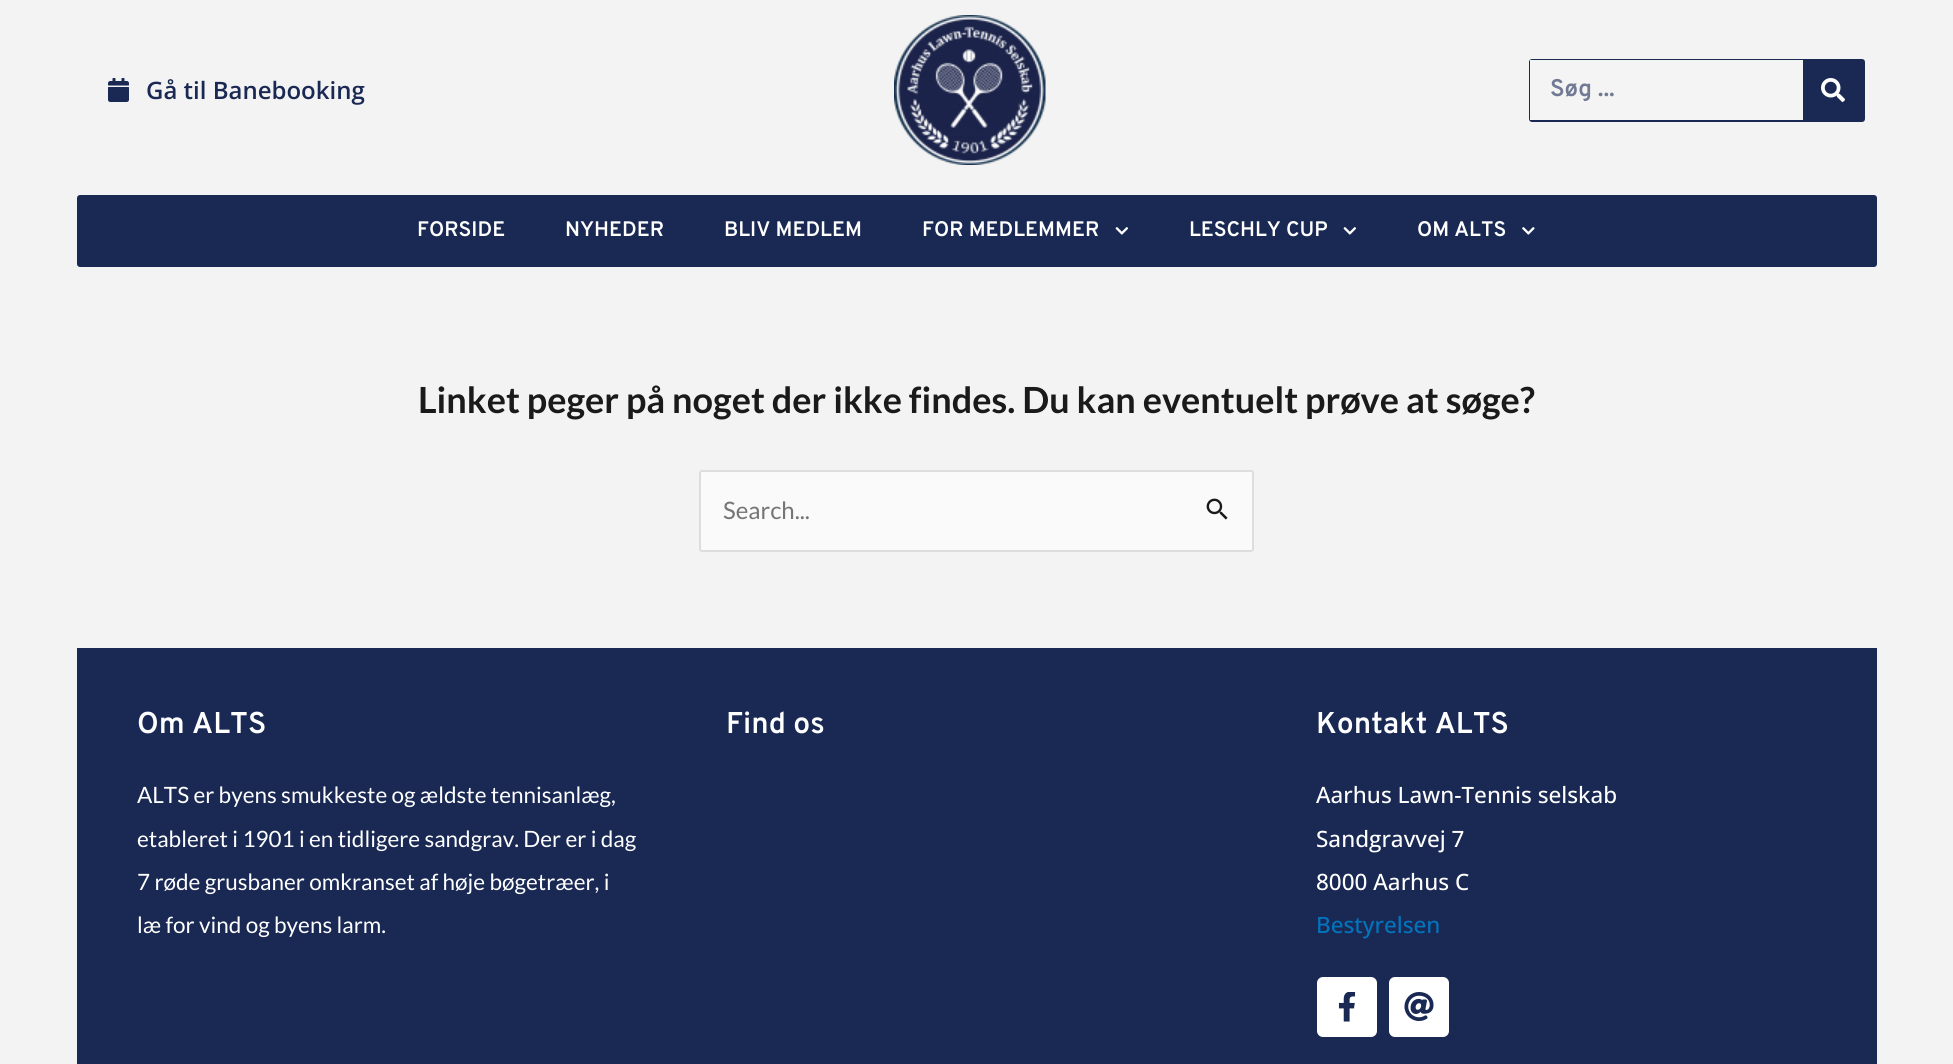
#include <cairo.h>
#include <math.h>
#include <stddef.h>

static cairo_t *c;
static void C(unsigned color){cairo_set_source_rgb(c, (color >> 16) / 255.0, (color >> 8 & 255) / 255.0, (color & 255) / 255.0);}
static void F(const char *family, double size, int italic, int bold){cairo_select_font_face(c, family, italic ? CAIRO_FONT_SLANT_ITALIC : CAIRO_FONT_SLANT_NORMAL,bold ? CAIRO_FONT_WEIGHT_BOLD : CAIRO_FONT_WEIGHT_NORMAL);cairo_set_font_size(c, size);}
static void T(double x, double y, const char *s){cairo_move_to(c, x, y);cairo_show_text(c, s);}
static void R(double x, double y, double w, double h){cairo_rectangle(c, x, y, w, h);cairo_fill(c);}
static void Q(double x, double y, double w, double h, double r){cairo_new_sub_path(c);cairo_arc(c, x + w - r, y + h - r, r, 0, M_PI / 2);cairo_arc(c, x + r, y + h - r, r, M_PI / 2, M_PI);cairo_arc(c, x + r, y + r, r, M_PI, 1.5 * M_PI);cairo_arc(c, x + w - r, y + r, r, 1.5 * M_PI, 2 * M_PI);cairo_close_path(c);}
static void I(const char *path, double x, double y, double w, double h){cairo_surface_t *image = cairo_image_surface_create_from_png(path);cairo_save(c);cairo_set_source_surface(c, image, x, y);cairo_rectangle(c, x, y, w, h);cairo_fill(c);cairo_restore(c);cairo_surface_destroy(image);}
int main(void) {
cairo_surface_t *surface = cairo_image_surface_create(CAIRO_FORMAT_RGB24, 1953, 1064);
c = cairo_create(surface);
cairo_font_options_t *options = cairo_font_options_create();
cairo_font_options_set_hint_metrics(options, CAIRO_HINT_METRICS_OFF);
cairo_font_options_set_hint_style(options, CAIRO_HINT_STYLE_NONE);
cairo_set_font_options(c, options);
cairo_set_miter_limit(c, 4);
C(0xf3f3f3);
cairo_paint(c);
I("1.png",108,78,21,24);
F("Open Sans SemiBold",24,0,0);
C(0x192954);
T(146,99,"Gå til Banebooking");
I("2.png",894,15,152,150);
Q(1530,60,334,61,2);
cairo_stroke(c);
C(0xf4f4f4);
R(1530,60,273,60);
F("Overpass SemiBold",24,0,0);
C(0x717a94);
T(1550,96,"Søg ...");
C(0x192954);
R(1803,61,60,59);
I("3.png",1821,78,24,24);
Q(77,195,1800,72,3);
cairo_fill(c);
F("Overpass SemiBold",21,0,0);
C(0xffffff);
T(417,236,"FORSIDE");
T(565,236,"NYHEDER");
T(724,236,"BLIV MEDLEM");
T(922,236,"FOR MEDLEMMER");
I("4.png",1115,227,14,8);
T(1189,236,"LESCHLY CUP");
I("4.png",1343,227,14,8);
T(1417,236,"OM ALTS");
I("5.png",1522,227,13,8);
F("Lato",36,0,1);
C(0x1a1a1a);
T(418,413,"Linket peger på noget der ikke findes. Du kan eventuelt prøve at søge?");
C(0xfafafa);
Q(700,471,553,80,2);
cairo_fill_preserve(c);
C(0xdddddd);
cairo_stroke(c);
F("Lato",24,0,0);
C(0x757575);
T(723,519,"Search...");
I("6.png",1206,498,22,22);
C(0x192954);
R(77,648,1800,416);
F("Overpass SemiBold",30,0,0);
C(0xffffff);
T(137,733,"Om ALTS");
F("Lato",22.5,0,0);
T(137,803,"ALTS er byens smukkeste og ældste tennisanlæg,");
T(137,847,"etableret i 1901 i en tidligere sandgrav. Der er i dag");
T(137,890,"7 røde grusbaner omkranset af høje bøgetræer, i");
T(137,933,"læ for vind og byens larm.");
F("Overpass SemiBold",30,0,0);
T(726,733,"Find os");
T(1316,733,"Kontakt ALTS");
F("Open Sans Medium",22.5,0,0);
T(1316,803,"Aarhus Lawn-Tennis selskab");
T(1316,847,"Sandgravvej 7");
T(1316,890,"8000 Aarhus C");
C(0x0274be);
T(1316,933,"Bestyrelsen");
C(0xffffff);
Q(1317,977,60,60,6);
cairo_fill(c);
I("7.png",1338,992,18,30);
Q(1389,977,60,60,6);
cairo_fill(c);
I("8.png",1404,992,30,29);
cairo_surface_write_to_png(surface, "o.png");
cairo_font_options_destroy(options);
cairo_destroy(c);
cairo_surface_destroy(surface);
return 0;
}
